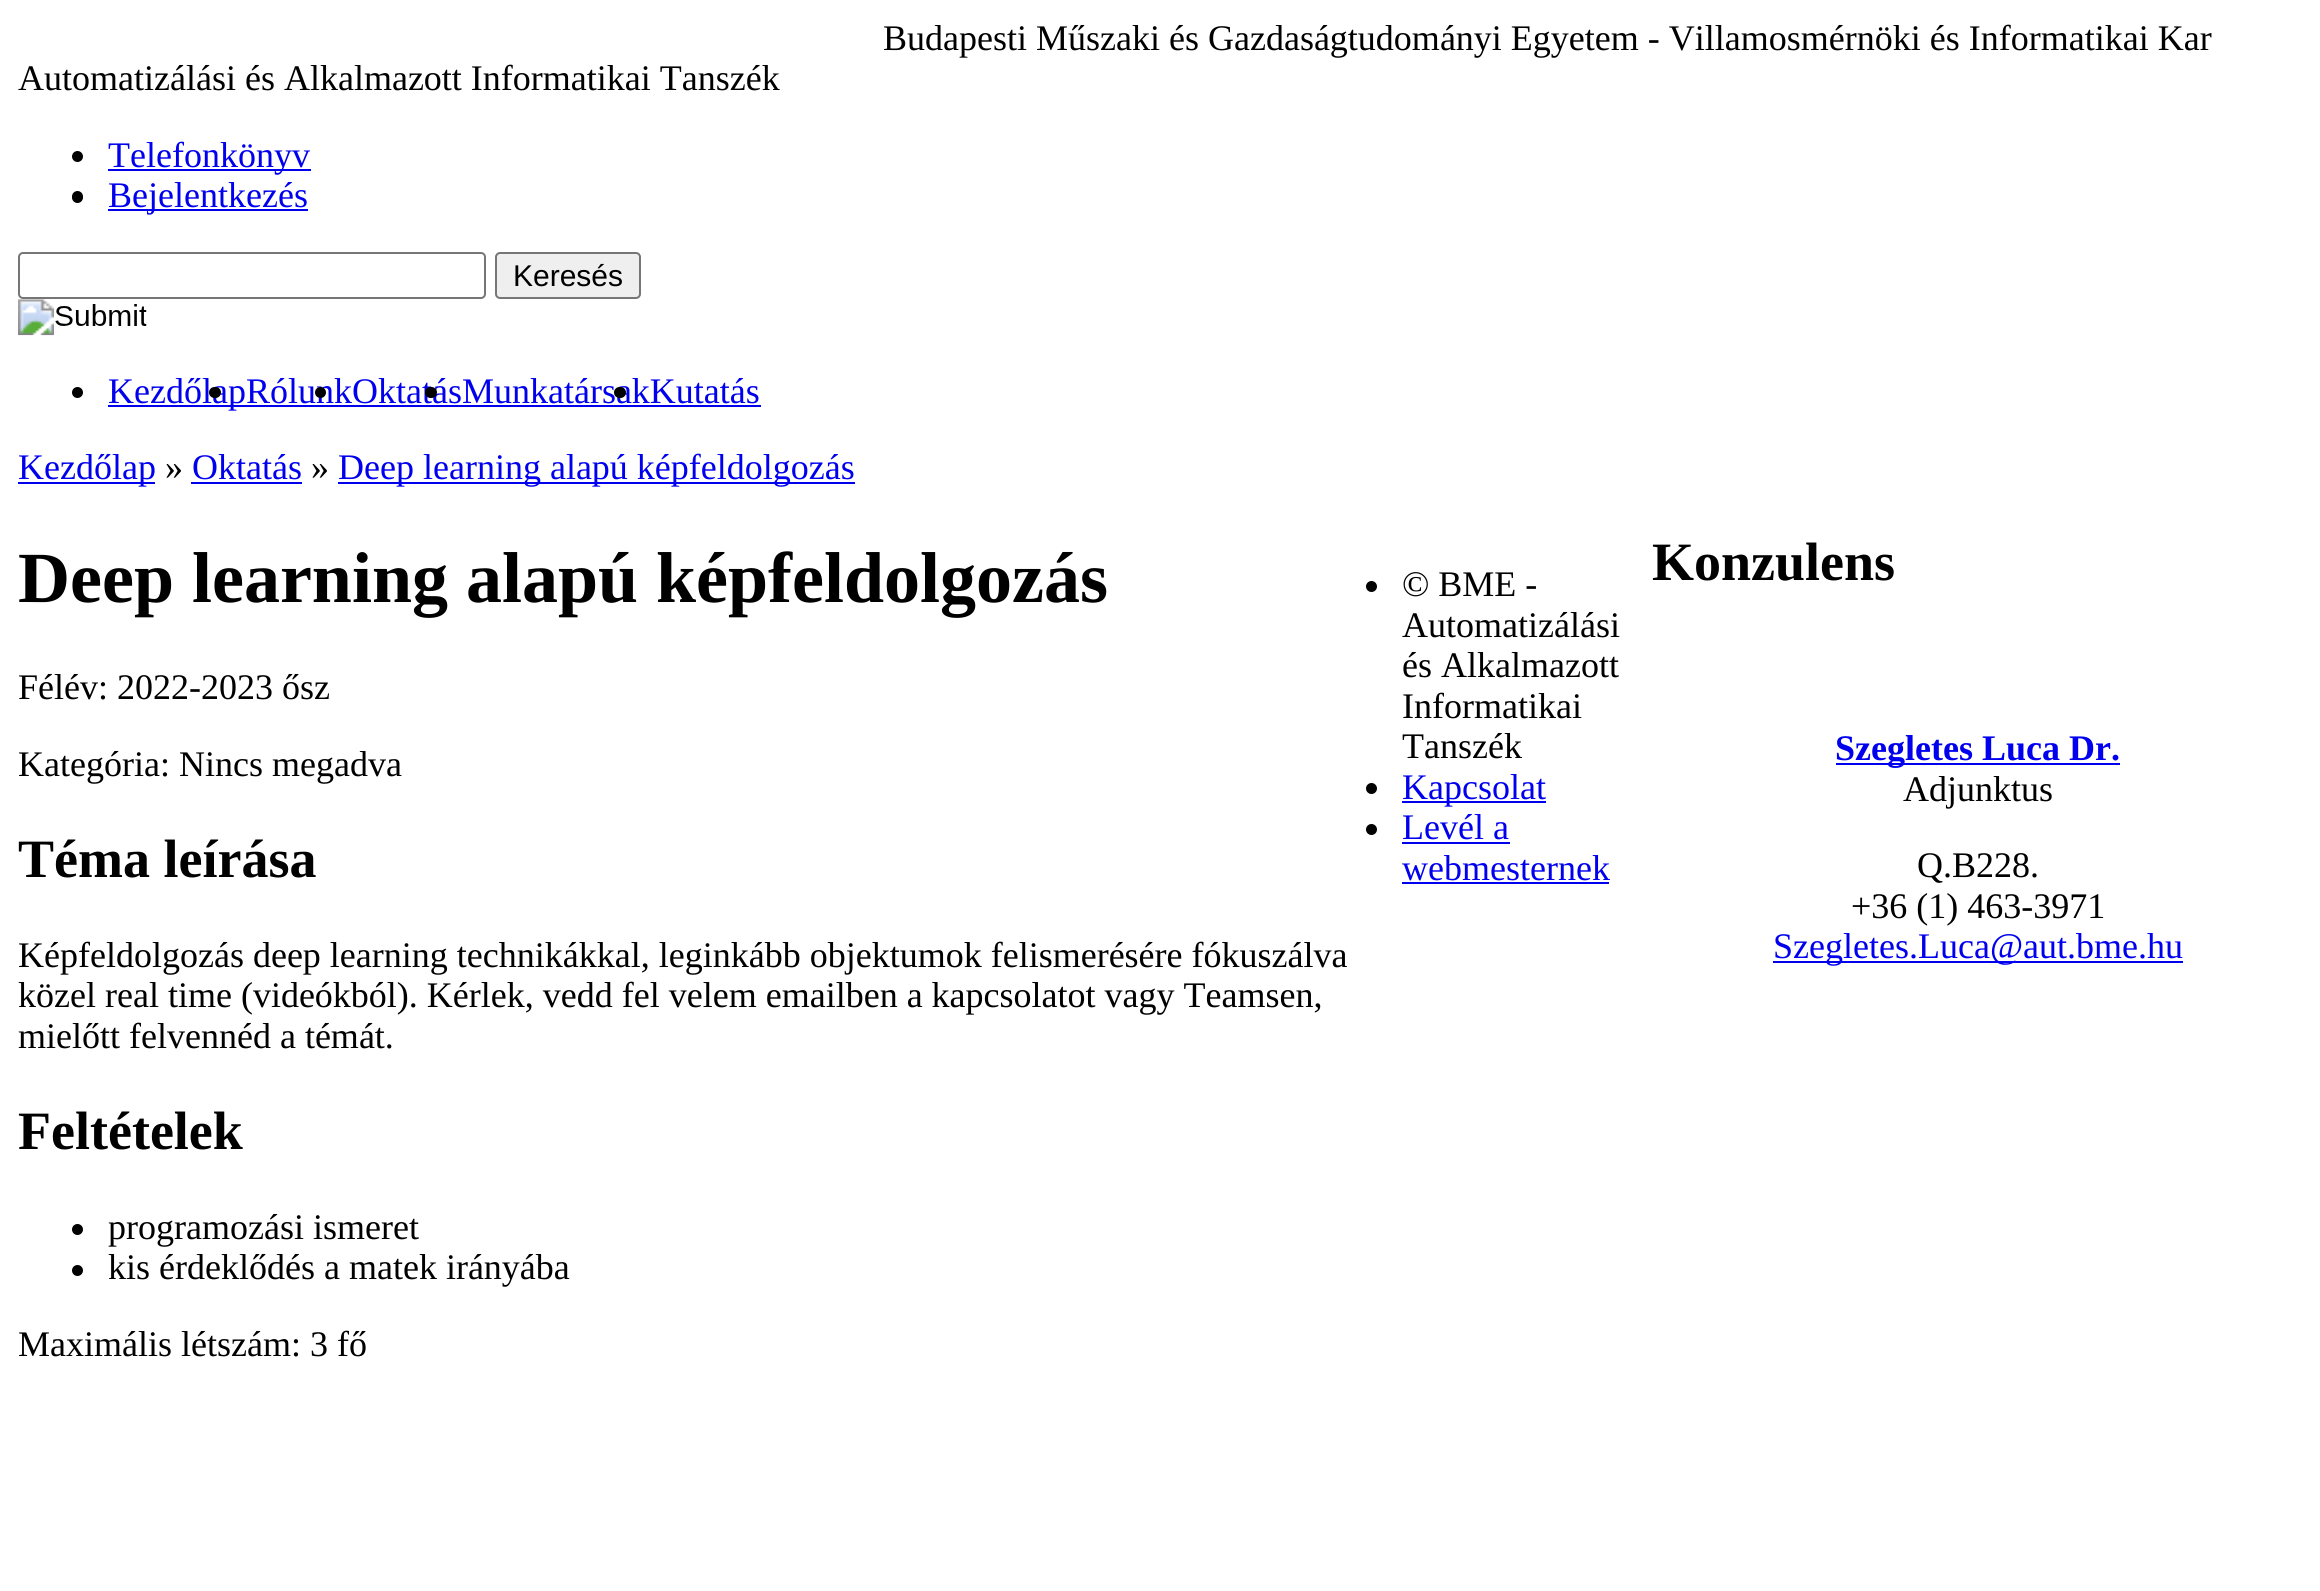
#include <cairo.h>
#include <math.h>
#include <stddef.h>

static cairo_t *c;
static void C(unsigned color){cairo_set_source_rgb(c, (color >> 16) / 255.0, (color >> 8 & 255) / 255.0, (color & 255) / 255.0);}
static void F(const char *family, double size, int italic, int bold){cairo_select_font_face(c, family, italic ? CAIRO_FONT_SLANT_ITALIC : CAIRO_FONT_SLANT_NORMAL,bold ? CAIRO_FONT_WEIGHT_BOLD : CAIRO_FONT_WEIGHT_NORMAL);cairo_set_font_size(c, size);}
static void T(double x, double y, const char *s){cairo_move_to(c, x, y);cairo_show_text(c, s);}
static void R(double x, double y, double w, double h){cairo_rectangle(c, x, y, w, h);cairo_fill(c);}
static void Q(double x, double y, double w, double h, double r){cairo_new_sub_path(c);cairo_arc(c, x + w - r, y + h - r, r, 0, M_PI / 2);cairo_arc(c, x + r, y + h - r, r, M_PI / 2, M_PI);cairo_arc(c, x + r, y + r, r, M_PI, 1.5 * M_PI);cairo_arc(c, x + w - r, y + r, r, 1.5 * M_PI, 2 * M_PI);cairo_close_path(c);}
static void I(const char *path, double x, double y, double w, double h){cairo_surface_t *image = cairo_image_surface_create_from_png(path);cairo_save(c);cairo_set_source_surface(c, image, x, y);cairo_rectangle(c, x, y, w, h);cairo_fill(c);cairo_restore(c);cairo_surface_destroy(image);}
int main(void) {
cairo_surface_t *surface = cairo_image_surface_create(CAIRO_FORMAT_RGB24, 2320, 1591);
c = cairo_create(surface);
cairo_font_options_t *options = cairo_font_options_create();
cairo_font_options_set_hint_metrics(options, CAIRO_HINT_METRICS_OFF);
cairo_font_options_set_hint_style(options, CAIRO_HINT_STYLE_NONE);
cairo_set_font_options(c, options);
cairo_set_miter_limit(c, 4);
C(0xffffff);
cairo_paint(c);
F("Liberation Serif",36,0,0);
C(0x000000);
T(883,50,"Budapesti Műszaki és Gazdaságtudományi Egyetem - Villamosmérnöki és Informatikai Kar");
T(18,90,"Automatizálási és Alkalmazott Informatikai Tanszék");
cairo_new_path(c);
cairo_arc(c,77.5,156.5,5.5,0,2 * M_PI);
cairo_fill(c);
C(0x0000ee);
R(108,169,203,2);
T(108,167,"Telefonkönyv");
C(0x000000);
Q(72,191,11,12,5.5);
cairo_fill(c);
C(0x0000ee);
R(108,209,200,2);
T(108,207,"Bejelentkezés");
Q(19,253,466,45,4);
C(0x767676);
cairo_stroke(c);
C(0xefefef);
Q(496,253,144,45,4);
cairo_fill_preserve(c);
C(0x767676);
cairo_stroke(c);
F("Liberation Sans",30,0,0);
C(0x000000);
T(513,286,"Keresés");
I("1.png",18,299,129,37);
cairo_arc(c,77.5,392.5,5.5,0,2 * M_PI);
cairo_fill(c);
C(0x0000ee);
R(108,405,243,2);
F("Liberation Serif",36,0,0);
T(108,403,"KezdőlapRólunkOktatásMunkatársakKutatás");
C(0x000000);
Q(209,387,12,11,5.5);
cairo_fill(c);
cairo_arc(c,320.5,392.5,5.5,0,2 * M_PI);
cairo_fill(c);
C(0x0000ee);
R(351,405,410,2);
C(0x000000);
Q(425,387,12,11,5.5);
cairo_fill(c);
Q(614,387,12,11,5.5);
cairo_fill(c);
C(0x0000ee);
R(18,482,137,2);
T(18,479,"Kezdőlap");
C(0x000000);
T(165,479,"»");
C(0x0000ee);
T(192,479,"Oktatás");
R(191,482,111,2);
C(0x000000);
T(311,479,"»");
C(0x0000ee);
R(338,482,517,2);
T(338,479,"Deep learning alapú képfeldolgozás");
F("Liberation Serif",72,0,1);
C(0x000000);
T(18,602,"Deep learning alapú képfeldolgozás");
F("Liberation Serif",36,0,0);
T(18,699,"Félév: 2022-2023 ősz");
T(18,776,"Kategória: Nincs megadva");
F("Liberation Serif",54,0,1);
T(18,877,"Téma leírása");
F("Liberation Serif",36,0,0);
T(18,967,"Képfeldolgozás deep learning technikákkal, leginkább objektumok felismerésére fókuszálva");
T(18,1007,"közel real time (videókból). Kérlek, vedd fel velem emailben a kapcsolatot vagy Teamsen,");
T(18,1048,"mielőtt felvennéd a témát.");
F("Liberation Serif",54,0,1);
T(18,1149,"Feltételek");
cairo_new_path(c);
cairo_arc(c,77.5,1229.5,5.5,0,2 * M_PI);
cairo_fill(c);
F("Liberation Serif",36,0,0);
T(108,1239,"programozási ismeret");
cairo_new_path(c);
cairo_arc(c,77.5,1270.5,5.5,0,2 * M_PI);
cairo_fill(c);
T(108,1279,"kis érdeklődés a matek irányába");
T(18,1356,"Maximális létszám: 3 fő");
F("Liberation Serif",54,0,1);
T(1652,580,"Konzulens");
C(0x0000ee);
R(1836,763,284,2);
F("Liberation Serif",36,0,1);
T(1835,760,"Szegletes Luca Dr.");
F("Liberation Serif",36,0,0);
C(0x000000);
T(1903,801,"Adjunktus");
T(1917,877,"Q.B228.");
T(1851,918,"+36 (1) 463-3971");
C(0x0000ee);
R(1773,961,410,2);
T(1773,958,"Szegletes.Luca@aut.bme.hu");
C(0x000000);
cairo_new_path(c);
cairo_arc(c,1371.5,586.5,5.5,0,2 * M_PI);
cairo_fill(c);
T(1402,596,"© BME -");
T(1402,637,"Automatizálási");
T(1402,677,"és Alkalmazott");
T(1402,718,"Informatikai");
T(1402,758,"Tanszék");
cairo_new_path(c);
cairo_arc(c,1371.5,788.5,5.5,0,2 * M_PI);
cairo_fill(c);
C(0x0000ee);
R(1402,801,144,2);
T(1402,799,"Kapcsolat");
C(0x000000);
cairo_new_path(c);
cairo_arc(c,1371.5,829.5,5.5,0,2 * M_PI);
cairo_fill(c);
C(0x0000ee);
T(1402,839,"Levél a");
R(1402,842,108,2);
T(1402,880,"webmesternek");
R(1402,882,207,2);
cairo_surface_write_to_png(surface, "o.png");
cairo_font_options_destroy(options);
cairo_destroy(c);
cairo_surface_destroy(surface);
return 0;
}
